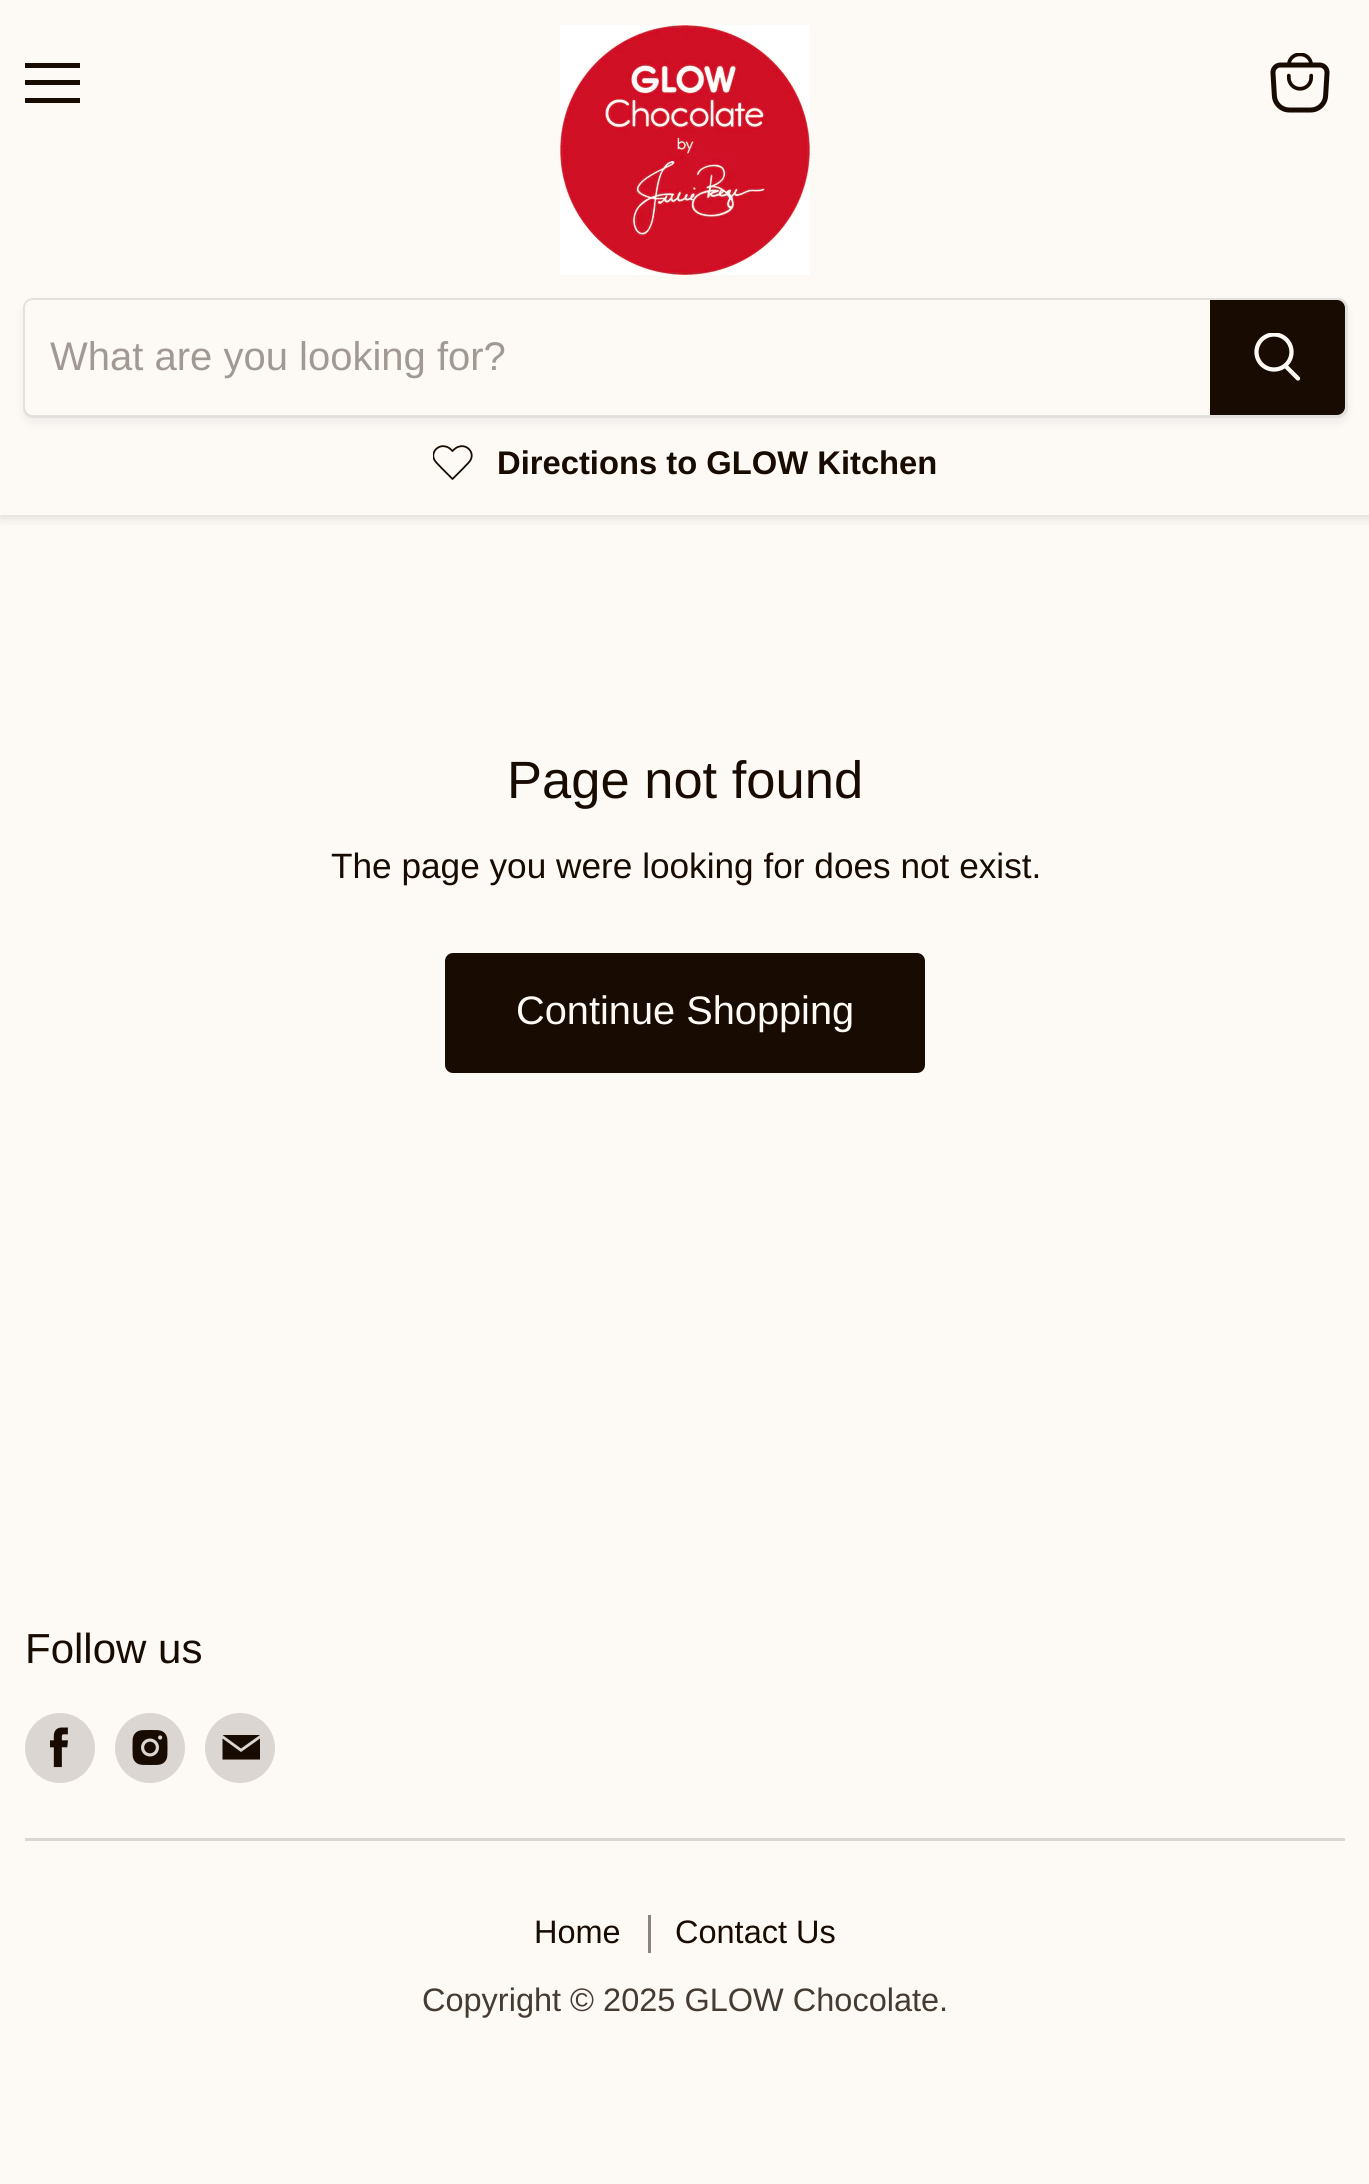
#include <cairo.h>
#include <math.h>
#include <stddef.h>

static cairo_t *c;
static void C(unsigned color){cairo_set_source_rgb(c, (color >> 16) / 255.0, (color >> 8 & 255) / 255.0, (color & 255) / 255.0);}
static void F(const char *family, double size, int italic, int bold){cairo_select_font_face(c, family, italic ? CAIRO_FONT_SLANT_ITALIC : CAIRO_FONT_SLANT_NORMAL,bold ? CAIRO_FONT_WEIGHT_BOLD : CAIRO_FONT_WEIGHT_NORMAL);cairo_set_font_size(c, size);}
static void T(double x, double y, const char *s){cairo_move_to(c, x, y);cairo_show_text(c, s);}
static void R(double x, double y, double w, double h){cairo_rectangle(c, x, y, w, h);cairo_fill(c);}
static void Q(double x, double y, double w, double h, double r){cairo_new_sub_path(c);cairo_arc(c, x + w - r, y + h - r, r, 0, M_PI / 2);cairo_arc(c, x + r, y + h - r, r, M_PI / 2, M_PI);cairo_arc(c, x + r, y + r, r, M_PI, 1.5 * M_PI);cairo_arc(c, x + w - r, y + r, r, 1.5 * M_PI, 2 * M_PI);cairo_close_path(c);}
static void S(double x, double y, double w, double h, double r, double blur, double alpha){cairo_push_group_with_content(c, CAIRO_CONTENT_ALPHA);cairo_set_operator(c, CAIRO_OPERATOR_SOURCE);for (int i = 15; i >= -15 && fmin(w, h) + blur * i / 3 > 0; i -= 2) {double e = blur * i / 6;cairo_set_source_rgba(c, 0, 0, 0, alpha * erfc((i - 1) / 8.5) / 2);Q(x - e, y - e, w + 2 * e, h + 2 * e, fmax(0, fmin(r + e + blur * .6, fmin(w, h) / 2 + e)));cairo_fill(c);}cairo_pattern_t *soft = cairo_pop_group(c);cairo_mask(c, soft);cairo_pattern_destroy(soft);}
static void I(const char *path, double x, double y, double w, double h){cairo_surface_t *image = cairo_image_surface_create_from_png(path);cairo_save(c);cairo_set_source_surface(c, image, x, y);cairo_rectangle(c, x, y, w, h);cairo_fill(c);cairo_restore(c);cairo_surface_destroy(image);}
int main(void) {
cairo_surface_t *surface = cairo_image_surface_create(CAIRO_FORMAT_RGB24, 1369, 2184);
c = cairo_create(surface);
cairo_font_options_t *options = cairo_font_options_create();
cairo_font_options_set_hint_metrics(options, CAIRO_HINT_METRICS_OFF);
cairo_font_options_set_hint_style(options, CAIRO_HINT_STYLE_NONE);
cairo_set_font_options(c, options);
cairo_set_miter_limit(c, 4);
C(0xfdfaf6);
cairo_paint(c);
cairo_save(c);
cairo_rectangle(c,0,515,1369,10);
cairo_clip(c);
C(0x7f7d7b);
S(0,3,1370,515,0,5,.25);
cairo_restore(c);
C(0x180b02);
R(25,63,55,5);
R(25,80,55,5);
R(25,98,55,5);
I("1.png",1270,53,60,60);
I("2.png",560,25,250,250);
cairo_save(c);
cairo_set_fill_rule(c,CAIRO_FILL_RULE_EVEN_ODD);
cairo_new_path(c);
cairo_move_to(c,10,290);
cairo_line_to(c,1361,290);
cairo_line_to(c,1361,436);
cairo_line_to(c,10,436);
cairo_close_path(c);
cairo_move_to(c,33,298);
cairo_line_to(c,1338,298);
cairo_curve_to(c,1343.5,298,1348,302.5,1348,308);
cairo_line_to(c,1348,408);
cairo_curve_to(c,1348,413.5,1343.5,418,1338,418);
cairo_line_to(c,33,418);
cairo_curve_to(c,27.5,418,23,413.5,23,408);
cairo_line_to(c,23,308);
cairo_curve_to(c,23,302.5,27.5,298,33,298);
cairo_close_path(c);
cairo_clip(c);
C(0x7f7d7b);
S(23,303,1325,120,10,4,.11);
cairo_restore(c);
Q(24.5,299.5,1322,117,8.5);
cairo_set_source_rgba(c,0.498,0.49,0.482,0.2);
cairo_set_line_width(c,3);
cairo_stroke(c);
C(0xfdfaf6);
cairo_new_path(c);
cairo_move_to(c,33,300);
cairo_line_to(c,1210,300);
cairo_line_to(c,1210,415);
cairo_line_to(c,33,415);
cairo_curve_to(c,28.5,415,25,411.5,25,407);
cairo_line_to(c,25,308);
cairo_curve_to(c,25,303.5,28.5,300,33,300);
cairo_close_path(c);
cairo_fill(c);
F("Liberation Sans",40,0,0);
C(0xa19a94);
T(50,370,"What are you looking for?");
C(0x180b02);
cairo_new_path(c);
cairo_move_to(c,1211.5,301.5);
cairo_line_to(c,1337,301.5);
cairo_curve_to(c,1340.5,301.5,1343.5,304.5,1343.5,308);
cairo_line_to(c,1343.5,407);
cairo_curve_to(c,1343.5,410.5,1340.5,413.5,1337,413.5);
cairo_line_to(c,1211.5,413.5);
cairo_close_path(c);
cairo_fill_preserve(c);
cairo_stroke(c);
cairo_new_path(c);
cairo_move_to(c,1298,378.5);
cairo_line_to(c,1286,366.5);
C(0xfdfaf6);
cairo_set_line_width(c,4.3);
cairo_set_line_cap(c,CAIRO_LINE_CAP_ROUND);
cairo_stroke(c);
cairo_save(c);
cairo_rectangle(c,1253,333,50,52);
cairo_clip(c);
cairo_arc(c,1274,352,17.5,0,2 * M_PI);
cairo_set_line_cap(c,CAIRO_LINE_CAP_BUTT);
cairo_stroke(c);
cairo_restore(c);
cairo_save(c);
cairo_rectangle(c,433,443,40,40);
cairo_clip(c);
cairo_new_path(c);
cairo_move_to(c,452.5,479);
cairo_line_to(c,441.5,468);
cairo_curve_to(c,439,465,435.5,462.5,434,459);
cairo_curve_to(c,431,452,438,444.5,445.5,446.5);
cairo_curve_to(c,448.5,447,450.5,449,452.5,451);
cairo_curve_to(c,454.5,449,456.5,447,459.5,446.5);
cairo_curve_to(c,467,444.5,474,452,471,459);
cairo_curve_to(c,469.5,462.5,466,465,463.5,468);
cairo_close_path(c);
C(0x180b02);
cairo_set_line_width(c,1.8);
cairo_set_line_join(c,CAIRO_LINE_JOIN_ROUND);
cairo_stroke(c);
cairo_restore(c);
F("Liberation Sans",32.75,0,1);
C(0x180b02);
T(497,474,"Directions to GLOW Kitchen");
F("Liberation Sans",52.5,0,0);
T(507,798,"Page not found");
F("Liberation Sans",35.2,0,0);
T(331,878,"The page you were looking for does not exist.");
Q(446.5,954.5,477,117,6.5);
cairo_fill_preserve(c);
cairo_set_line_width(c,3);
cairo_set_line_cap(c,CAIRO_LINE_CAP_BUTT);
cairo_stroke(c);
F("Liberation Sans",39.75,0,0);
C(0xfdfaf6);
T(516,1024,"Continue Shopping");
C(0xdbd6d1);
R(25,1838,1320,3);
F("Liberation Sans",42,0,0);
C(0x180b02);
T(25,1663,"Follow us");
C(0xdbd6d1);
cairo_new_path(c);
cairo_arc(c,60,1748,35,0,2 * M_PI);
cairo_fill(c);
I("3.png",50,1727,18,41);
cairo_arc(c,150,1748,35,0,2 * M_PI);
cairo_fill(c);
I("4.png",132,1730,36,35);
cairo_arc(c,240,1748,35,0,2 * M_PI);
cairo_fill(c);
C(0x180b02);
cairo_set_fill_rule(c,CAIRO_FILL_RULE_EVEN_ODD);
cairo_new_path(c);
cairo_move_to(c,260,1735);
cairo_line_to(c,222.5,1735);
cairo_line_to(c,241,1748.5);
cairo_close_path(c);
cairo_move_to(c,241,1752);
cairo_line_to(c,222.5,1738.5);
cairo_line_to(c,222.5,1759.5);
cairo_line_to(c,260,1759.5);
cairo_line_to(c,260,1738.5);
cairo_close_path(c);
cairo_fill(c);
C(0x8b837c);
R(648,1915,3,38);
F("Liberation Sans",32.5,0,0);
C(0x180b02);
T(534,1943,"Home");
T(675,1943,"Contact Us");
C(0x463b33);
T(422,2011,"Copyright © 2025 GLOW Chocolate.");
cairo_surface_write_to_png(surface, "o.png");
cairo_font_options_destroy(options);
cairo_destroy(c);
cairo_surface_destroy(surface);
return 0;
}
